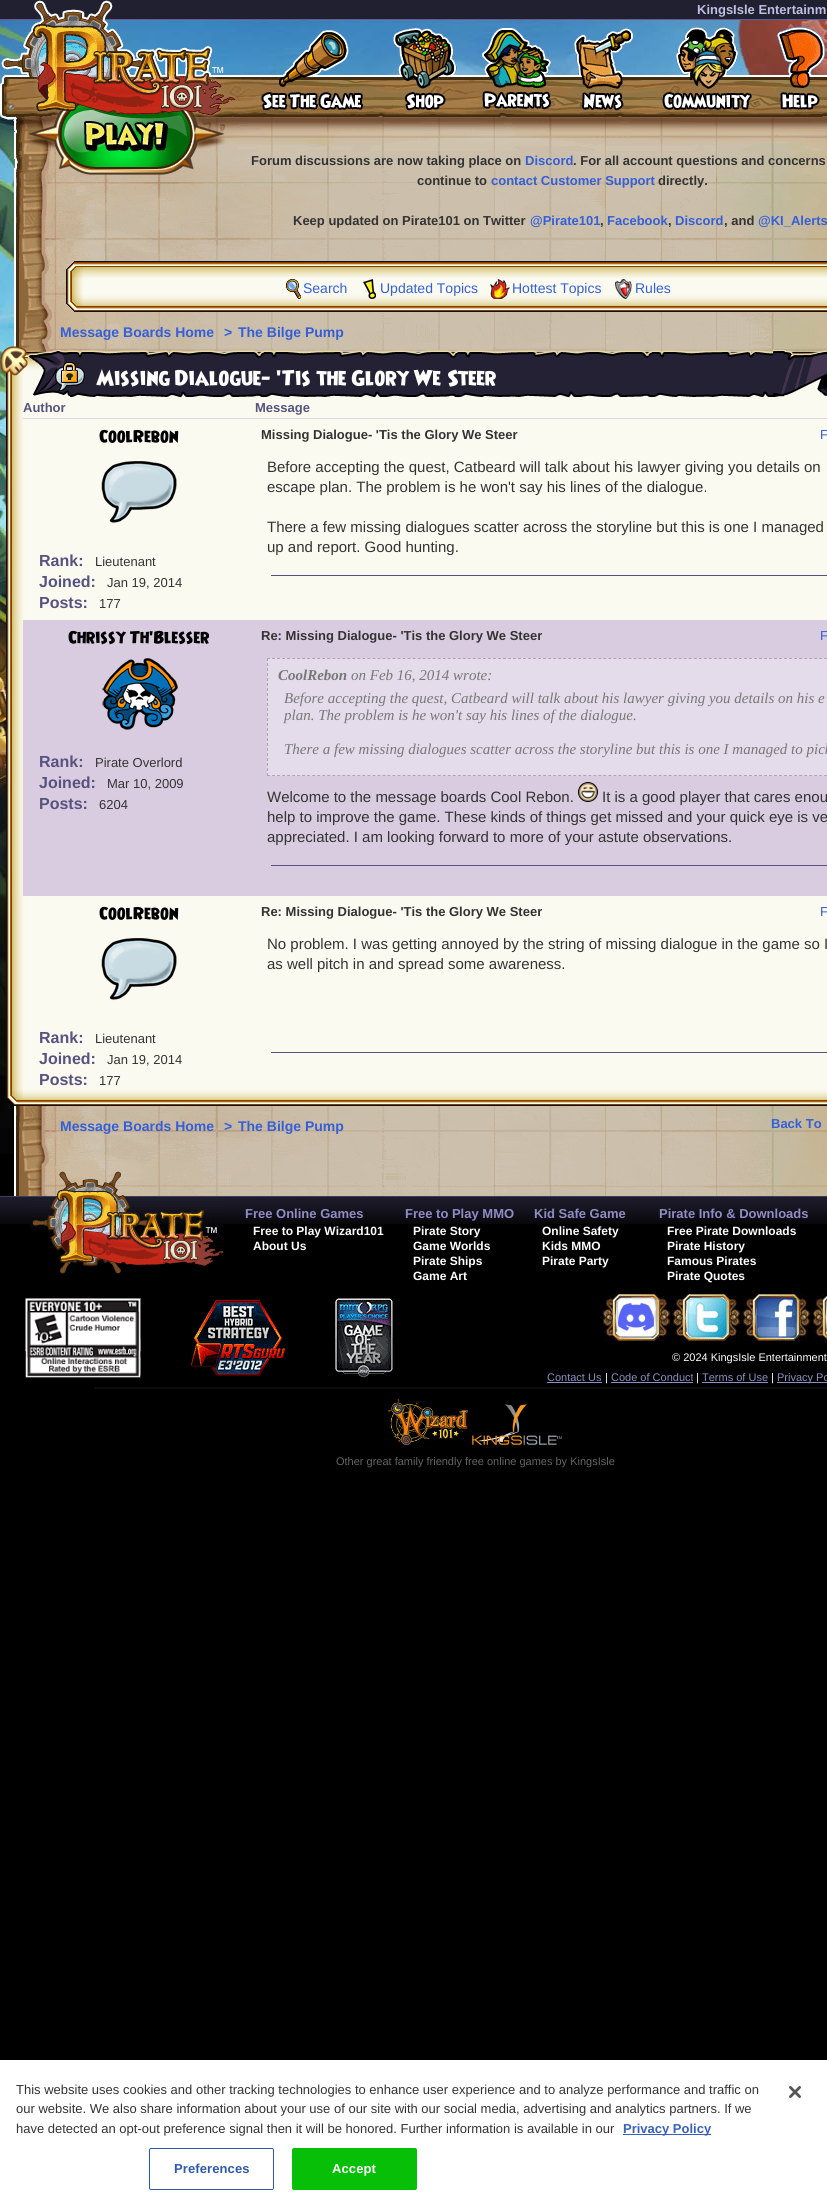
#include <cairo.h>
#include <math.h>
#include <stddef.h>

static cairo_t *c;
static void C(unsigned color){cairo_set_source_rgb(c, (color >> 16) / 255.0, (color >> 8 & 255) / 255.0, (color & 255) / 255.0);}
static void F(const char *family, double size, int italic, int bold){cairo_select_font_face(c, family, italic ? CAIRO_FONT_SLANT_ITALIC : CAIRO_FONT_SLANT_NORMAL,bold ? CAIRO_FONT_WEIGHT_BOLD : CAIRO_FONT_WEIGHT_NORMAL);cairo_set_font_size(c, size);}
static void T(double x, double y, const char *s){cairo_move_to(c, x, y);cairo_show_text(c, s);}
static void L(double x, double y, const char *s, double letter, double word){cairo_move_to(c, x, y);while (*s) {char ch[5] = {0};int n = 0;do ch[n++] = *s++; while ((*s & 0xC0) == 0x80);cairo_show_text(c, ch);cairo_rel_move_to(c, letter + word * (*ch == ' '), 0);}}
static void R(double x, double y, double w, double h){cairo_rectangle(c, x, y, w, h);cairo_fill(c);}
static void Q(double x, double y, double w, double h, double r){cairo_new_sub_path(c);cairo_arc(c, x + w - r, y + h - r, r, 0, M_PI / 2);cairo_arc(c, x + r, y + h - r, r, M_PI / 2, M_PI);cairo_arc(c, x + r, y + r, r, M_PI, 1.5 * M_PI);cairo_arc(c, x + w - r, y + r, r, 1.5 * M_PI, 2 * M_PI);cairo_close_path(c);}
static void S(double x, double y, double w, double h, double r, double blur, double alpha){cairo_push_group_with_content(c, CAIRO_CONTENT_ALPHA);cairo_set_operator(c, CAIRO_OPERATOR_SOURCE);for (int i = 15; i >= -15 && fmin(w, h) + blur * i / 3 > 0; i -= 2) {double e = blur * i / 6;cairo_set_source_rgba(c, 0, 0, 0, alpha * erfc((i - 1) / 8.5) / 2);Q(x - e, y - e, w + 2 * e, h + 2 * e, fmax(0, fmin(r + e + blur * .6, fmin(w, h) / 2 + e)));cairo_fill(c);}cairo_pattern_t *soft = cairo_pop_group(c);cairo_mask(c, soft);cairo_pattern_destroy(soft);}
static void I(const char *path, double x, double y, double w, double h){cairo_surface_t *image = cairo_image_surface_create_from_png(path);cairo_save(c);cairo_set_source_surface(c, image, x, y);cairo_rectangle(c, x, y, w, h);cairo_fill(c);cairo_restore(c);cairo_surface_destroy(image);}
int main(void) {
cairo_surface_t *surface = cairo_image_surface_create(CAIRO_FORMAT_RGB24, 827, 2206);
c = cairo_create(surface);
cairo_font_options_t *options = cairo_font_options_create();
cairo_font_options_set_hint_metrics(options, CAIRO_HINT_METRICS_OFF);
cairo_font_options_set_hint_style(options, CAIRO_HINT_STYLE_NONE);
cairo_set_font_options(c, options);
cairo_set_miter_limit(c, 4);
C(0x000000);
cairo_paint(c);
I("1.png",0,20,827,1134);
I("2.png",0,0,827,151);
I("3.png",261,30,102,81);
I("4.png",392,28,65,83);
I("5.png",482,28,69,82);
I("6.png",574,28,59,83);
I("7.png",662,27,90,83);
I("8.png",777,27,48,83);
I("10.png",14,151,813,1045);
I("9.png",54,107,144,68);
F("Liberation Sans",13,0,1);
C(0xbfbfe3);
T(697,14,"KingsIsle Entertainm");
C(0x333333);
T(251,165,"Forum discussions are now taking place on");
C(0x355fd6);
T(525,165,"Discord");
C(0x333333);
T(573,165,". For all account questions and concerns");
T(417,185,"continue to");
C(0x355fd6);
T(491,185,"contact Customer Support");
C(0x333333);
T(658,185,"directly.");
T(293,225,"Keep updated on Pirate101 on Twitter");
C(0x355fd6);
T(530,225,"@Pirate101");
C(0x333333);
T(600,225,",");
C(0x355fd6);
T(607,225,"Facebook");
C(0x333333);
T(668,225,",");
C(0x355fd6);
T(675,225,"Discord");
C(0x333333);
T(724,225,", and");
C(0x355fd6);
T(758,225,"@KI_Alerts");
I("11.png",66,261,761,17);
I("12.png",83,268,3,10);
I("13.png",66,278,761,15);
C(0xfbfaf1);
R(83,278,1,15);
I("18.png",66,293,761,19);
I("14.png",286,279,15,20);
F("Liberation Sans",14,0,0);
C(0x355fd6);
T(303,293,"Search");
I("15.png",363,279,13,20);
T(380,293,"Updated Topics");
I("16.png",490,279,20,20);
T(512,293,"Hottest Topics");
I("17.png",615,279,17,20);
T(635,293,"Rules");
I("19.png",83,293,3,12);
F("Liberation Sans",14,0,1);
T(60,337,"Message Boards Home");
T(224,337,">");
T(238,337,"The Bilge Pump");
I("20.png",6,352,821,46);
I("22.png",23,359,3,39);
I("21.png",0,346,28,30);
I("23.png",28,350,42,47);
I("24.png",70,350,710,48);
I("25.png",55,362,30,29);
F("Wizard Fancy",20,0,0);
C(0xffffff);
T(96,385,"Missing Dialogue- 'Tis the Glory We Steer");
I("26.png",773,350,54,47);
I("27.png",6,398,821,689);
C(0xfbfaf1);
R(23,398,1,689);
F("Liberation Sans",13,0,1);
C(0x57527f);
T(23,412,"Author");
C(0xddd6e1);
R(23,418,804,1);
C(0x57527f);
T(255,412,"Message");
F("Wizard Fancy",16,0,0);
C(0x000000);
T(99,442,"CoolRebon");
I("28.png",101,461,76,63);
F("Liberation Sans",16,0,1);
C(0x57527f);
T(39,566,"Rank:");
F("Liberation Sans",13,0,0);
C(0x333333);
T(95,566,"Lieutenant");
F("Liberation Sans",16,0,1);
C(0x57527f);
T(39,587,"Joined:");
F("Liberation Sans",13,0,0);
C(0x333333);
T(107,587,"Jan 19, 2014");
F("Liberation Sans",16,0,1);
C(0x57527f);
T(39,608,"Posts:");
F("Liberation Sans",13,0,0);
C(0x333333);
T(99,608,"177");
F("Liberation Sans",13,0,1);
T(261,439,"Missing Dialogue- 'Tis the Glory We Steer");
F("Liberation Sans",13,0,0);
C(0x355fd6);
T(820,439,"F");
F("Liberation Sans",15,0,0);
C(0x333333);
T(267,472,"Before accepting the quest, Catbeard will talk about his lawyer giving you details on");
T(267,492,"escape plan. The problem is he won't say his lines of the dialogue.");
T(267,532,"There a few missing dialogues scatter across the storyline but this is one I managed");
T(267,552,"up and report. Good hunting.");
C(0x57527f);
R(271,575,556,1);
C(0xd9cce0);
R(23,620,804,276);
F("Wizard Fancy",16,0,0);
C(0x000000);
T(68,643,"Chrissy Th'Blesser");
I("29.png",102,658,76,72);
F("Liberation Sans",16,0,1);
C(0x57527f);
T(39,767,"Rank:");
F("Liberation Sans",13,0,0);
C(0x333333);
T(95,767,"Pirate Overlord");
F("Liberation Sans",16,0,1);
C(0x57527f);
T(39,788,"Joined:");
F("Liberation Sans",13,0,0);
C(0x333333);
T(107,788,"Mar 10, 2009");
F("Liberation Sans",16,0,1);
C(0x57527f);
T(39,809,"Posts:");
F("Liberation Sans",13,0,0);
C(0x333333);
T(99,809,"6204");
F("Liberation Sans",13,0,1);
T(261,640,"Re: Missing Dialogue- 'Tis the Glory We Steer");
F("Liberation Sans",13,0,0);
C(0x355fd6);
T(820,640,"F");
C(0xe5dceb);
R(267,658,560,118);
cairo_new_path(c);
cairo_move_to(c,267,658.5);
cairo_line_to(c,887,658.5);
C(0xafa3b5);
cairo_set_line_width(c,1);
cairo_set_dash(c,(double[]){3,2.02},2,0);
cairo_stroke(c);
cairo_new_path(c);
cairo_move_to(c,267,775.5);
cairo_line_to(c,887,775.5);
cairo_stroke(c);
cairo_new_path(c);
cairo_move_to(c,267.5,658);
cairo_line_to(c,267.5,776);
cairo_set_dash(c,(double[]){3,2},2,0);
cairo_stroke(c);
F("Liberation Serif",15,1,1);
C(0x777777);
T(278,680,"CoolRebon");
F("Liberation Serif",15,1,0);
T(351,680,"on Feb 16, 2014 wrote:");
I("30.png",578,782,20,20);
cairo_save(c);
cairo_rectangle(c,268,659,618,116);
cairo_clip(c);
C(0xe5dceb);
S(248,741,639,54,0,20,1);
cairo_restore(c);
T(284,703,"Before accepting the quest, Catbeard will talk about his lawyer giving you details on his e");
T(284,720,"plan. The problem is he won't say his lines of the dialogue.");
T(284,754,"There a few missing dialogues scatter across the storyline but this is one I managed to pick");
F("Liberation Sans",15,0,0);
C(0x333333);
T(267,802,"Welcome to the message boards Cool Rebon.");
T(602,802,"It is a good player that cares enou");
T(267,822,"help to improve the game. These kinds of things get missed and your quick eye is ve");
T(267,842,"appreciated. I am looking forward to more of your astute observations.");
C(0x57527f);
R(271,865,556,1);
F("Wizard Fancy",16,0,0);
C(0x000000);
T(99,919,"CoolRebon");
I("28.png",101,938,76,63);
F("Liberation Sans",16,0,1);
C(0x57527f);
T(39,1043,"Rank:");
F("Liberation Sans",13,0,0);
C(0x333333);
T(95,1043,"Lieutenant");
F("Liberation Sans",16,0,1);
C(0x57527f);
T(39,1064,"Joined:");
F("Liberation Sans",13,0,0);
C(0x333333);
T(107,1064,"Jan 19, 2014");
F("Liberation Sans",16,0,1);
C(0x57527f);
T(39,1085,"Posts:");
F("Liberation Sans",13,0,0);
C(0x333333);
T(99,1085,"177");
F("Liberation Sans",13,0,1);
T(261,916,"Re: Missing Dialogue- 'Tis the Glory We Steer");
F("Liberation Sans",13,0,0);
C(0x355fd6);
T(820,916,"F");
F("Liberation Sans",15,0,0);
C(0x333333);
T(267,949,"No problem. I was getting annoyed by the string of missing dialogue in the game so I");
T(267,969,"as well pitch in and spread some awareness.");
C(0x57527f);
R(271,1052,556,1);
I("31.png",6,1087,821,19);
I("19.png",23,1087,3,12);
F("Liberation Sans",14,0,1);
C(0x355fd6);
T(60,1131,"Message Boards Home");
T(224,1131,">");
T(238,1131,"The Bilge Pump");
F("Liberation Sans",13,0,1);
T(771,1128,"Back To");
I("32.png",0,1196,827,28);
I("33.png",30,1171,193,103);
C(0x928cc5);
T(245,1218,"Free Online Games");
F("Liberation Sans",12,0,1);
C(0xffffff);
T(253,1235,"Free to Play Wizard101");
T(253,1250,"About Us");
F("Liberation Sans",13,0,1);
C(0x928cc5);
T(405,1218,"Free to Play MMO");
F("Liberation Sans",12,0,1);
C(0xffffff);
T(413,1235,"Pirate Story");
T(413,1250,"Game Worlds");
T(413,1265,"Pirate Ships");
T(413,1280,"Game Art");
F("Liberation Sans",13,0,1);
C(0x928cc5);
T(534,1218,"Kid Safe Game");
F("Liberation Sans",12,0,1);
C(0xffffff);
T(542,1235,"Online Safety");
T(542,1250,"Kids MMO");
T(542,1265,"Pirate Party");
F("Liberation Sans",13,0,1);
C(0x928cc5);
T(659,1218,"Pirate Info & Downloads");
F("Liberation Sans",12,0,1);
C(0xffffff);
T(667,1235,"Free Pirate Downloads");
T(667,1250,"Pirate History");
T(667,1265,"Famous Pirates");
T(667,1280,"Pirate Quotes");
I("34.png",25,1298,116,80);
I("35.png",191,1299,94,78);
I("36.png",335,1298,58,80);
I("37.png",603,1294,67,47);
I("38.png",673,1294,67,47);
I("39.png",743,1294,67,47);
I("40.png",813,1294,14,47);
F("Liberation Sans",11,0,0);
T(672,1361,"© 2024 KingsIsle Entertainment");
C(0x928cc5);
T(547,1381,"Contact Us");
R(547,1382,55,1);
C(0xffffff);
T(605,1381,"|");
C(0x928cc5);
T(611,1381,"Code of Conduct");
R(611,1382,82,1);
C(0xffffff);
T(696,1381,"|");
C(0x928cc5);
T(702,1381,"Terms of Use");
R(702,1382,66,1);
C(0xffffff);
T(771,1381,"|");
C(0x928cc5);
R(777,1382,50,1);
T(777,1381,"Privacy Po");
C(0x0c0c0c);
R(94,1387,733,2);
I("41.png",388,1399,80,46);
I("42.png",472,1404,90,41);
C(0x666464);
T(336,1465,"Other great family friendly free online games by KingsIsle");
C(0xffffff);
R(0,2060,827,146);
F("Liberation Sans",13,0,0);
C(0x333333);
T(16,2094,"This website uses cookies and other tracking technologies to enhance user experience and to analyze performance and traffic on");
T(16,2113,"our website. We also share information about your use of our site with our social media, advertising and analytics partners. If we");
T(16,2133,"have detected an opt-out preference signal then it will be honored. Further information is available in our");
C(0x3860be);
R(623,2134,88,1);
F("Liberation Sans",13,0,1);
T(623,2133,"Privacy Policy");
Q(149.5,2148.5,124,41,1.5);
C(0x2e58ae);
cairo_set_dash(c,NULL,0,0);
cairo_stroke(c);
L(174,2173,"Preferences",.1,0);
C(0x06bf06);
Q(292.5,2148.5,124,41,1.5);
cairo_fill_preserve(c);
cairo_stroke(c);
C(0xffffff);
L(332,2173,"Accept",.1,0);
I("43.png",789,2086,12,12);
cairo_surface_write_to_png(surface, "o.png");
cairo_font_options_destroy(options);
cairo_destroy(c);
cairo_surface_destroy(surface);
return 0;
}
